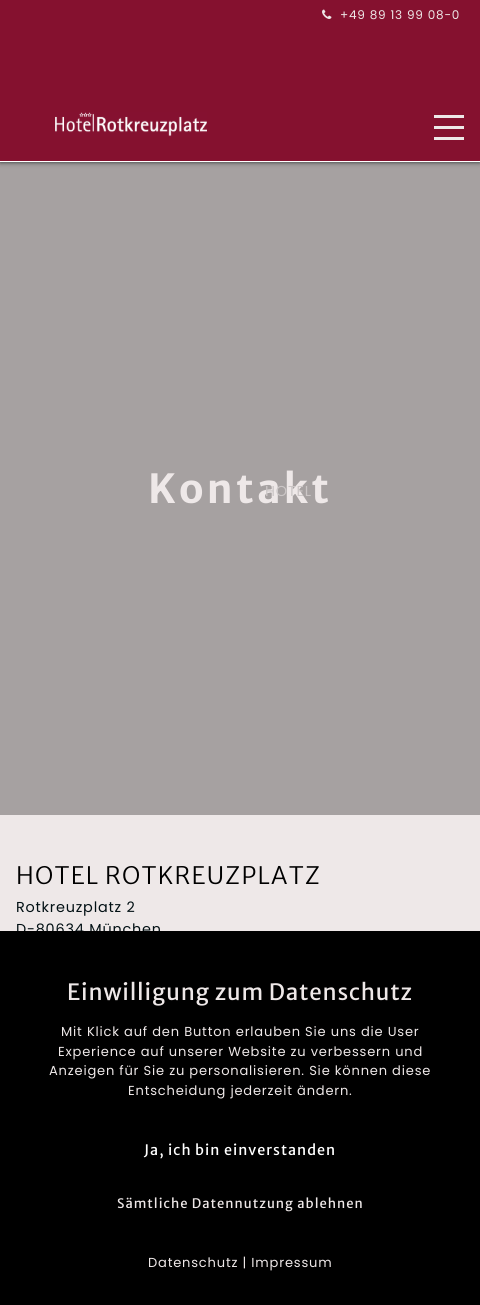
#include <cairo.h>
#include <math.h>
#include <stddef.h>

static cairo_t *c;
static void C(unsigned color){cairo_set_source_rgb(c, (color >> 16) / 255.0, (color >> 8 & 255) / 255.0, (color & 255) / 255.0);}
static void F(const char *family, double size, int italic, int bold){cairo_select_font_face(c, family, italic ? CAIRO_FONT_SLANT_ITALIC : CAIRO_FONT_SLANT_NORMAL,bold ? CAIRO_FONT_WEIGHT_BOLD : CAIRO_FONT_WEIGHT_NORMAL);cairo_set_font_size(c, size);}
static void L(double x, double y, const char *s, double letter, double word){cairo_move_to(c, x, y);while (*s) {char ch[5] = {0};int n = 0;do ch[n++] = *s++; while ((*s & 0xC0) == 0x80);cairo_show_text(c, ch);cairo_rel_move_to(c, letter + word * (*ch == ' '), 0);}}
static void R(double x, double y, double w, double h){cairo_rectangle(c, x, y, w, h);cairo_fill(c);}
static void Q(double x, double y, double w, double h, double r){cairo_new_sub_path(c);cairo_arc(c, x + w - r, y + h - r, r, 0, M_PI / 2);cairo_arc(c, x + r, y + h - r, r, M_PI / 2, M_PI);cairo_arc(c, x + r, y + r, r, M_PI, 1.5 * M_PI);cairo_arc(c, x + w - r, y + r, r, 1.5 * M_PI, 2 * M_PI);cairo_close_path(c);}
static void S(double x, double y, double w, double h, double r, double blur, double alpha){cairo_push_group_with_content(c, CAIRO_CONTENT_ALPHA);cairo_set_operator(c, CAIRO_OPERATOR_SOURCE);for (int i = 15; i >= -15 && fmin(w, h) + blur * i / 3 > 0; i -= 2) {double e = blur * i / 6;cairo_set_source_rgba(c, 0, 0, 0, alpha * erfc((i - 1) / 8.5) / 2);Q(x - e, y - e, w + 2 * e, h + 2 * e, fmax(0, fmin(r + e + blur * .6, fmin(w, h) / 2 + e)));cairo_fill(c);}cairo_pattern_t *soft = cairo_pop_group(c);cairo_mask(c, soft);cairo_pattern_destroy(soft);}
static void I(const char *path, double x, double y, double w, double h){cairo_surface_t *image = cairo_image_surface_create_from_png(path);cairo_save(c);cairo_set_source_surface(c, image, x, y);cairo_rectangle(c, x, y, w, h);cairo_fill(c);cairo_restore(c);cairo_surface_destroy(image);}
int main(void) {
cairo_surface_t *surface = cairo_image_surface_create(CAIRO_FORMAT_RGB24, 480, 1305);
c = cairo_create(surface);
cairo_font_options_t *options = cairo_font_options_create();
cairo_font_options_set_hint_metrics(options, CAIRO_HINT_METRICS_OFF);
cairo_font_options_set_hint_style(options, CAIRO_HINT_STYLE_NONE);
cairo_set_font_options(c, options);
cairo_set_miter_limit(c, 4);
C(0xeee8e8);
cairo_paint(c);
C(0xa6a1a1);
R(0,162,480,653);
F("Merriweather Sans",40,0,1);
C(0xeee8e8);
L(148,503,"Kontakt",3.25,0);
C(0x242626);
S(0,0,480,162,0,2.5,1);
C(0x85112f);
R(0,0,480,161);
I("1.png",322,9,10,10);
F("Poppins",12,0,0);
C(0xeee8e8);
L(340,19,"+49 89 13 99 08-0",.8,0);
C(0xffffff);
R(0,161,480,1);
I("2.png",55,112,152,25);
C(0xeee8e8);
R(434,115,30,3);
R(434,126,30,3);
R(434,137,30,3);
F("Poppins",14.4,0,0);
C(0xcbc6c6);
L(265,496,"HOTEL",.8,0);
F("Merriweather Sans Light",24,0,0);
C(0x000000);
L(16,884,"HOTEL ROTKREUZPLATZ",1.25,0);
F("Poppins",14.4,0,0);
C(0x021014);
L(16,912,"Rotkreuzplatz 2",.8,0);
L(16,934,"D-80634 München",.8,0);
C(0x000000);
R(0,931,480,374);
F("Merriweather Sans",22.4,0,0);
C(0xeee8e8);
L(67,1000,"Einwilligung zum Datenschutz",.8,0);
F("Poppins",13.05,0,0);
L(61,1036,"Mit Klick auf den Button erlauben Sie uns die User",.8,0);
L(58,1056,"Experience auf unserer Website zu verbessern und",.8,0);
L(49,1075,"Anzeigen für Sie zu personalisieren. Sie können diese",.8,0);
L(128,1095,"Entscheidung jederzeit ändern.",.8,0);
F("Merriweather Sans",14.4,0,0);
C(0xffffff);
L(144,1155,"Ja, ich bin einverstanden",1,0);
F("Merriweather Sans",13.05,0,0);
C(0xeee8e8);
L(117,1208,"Sämtliche Datennutzung ablehnen",1,0);
F("Poppins",13.05,0,0);
L(148,1267,"Datenschutz | Impressum",.8,0);
cairo_surface_write_to_png(surface, "o.png");
cairo_font_options_destroy(options);
cairo_destroy(c);
cairo_surface_destroy(surface);
return 0;
}
